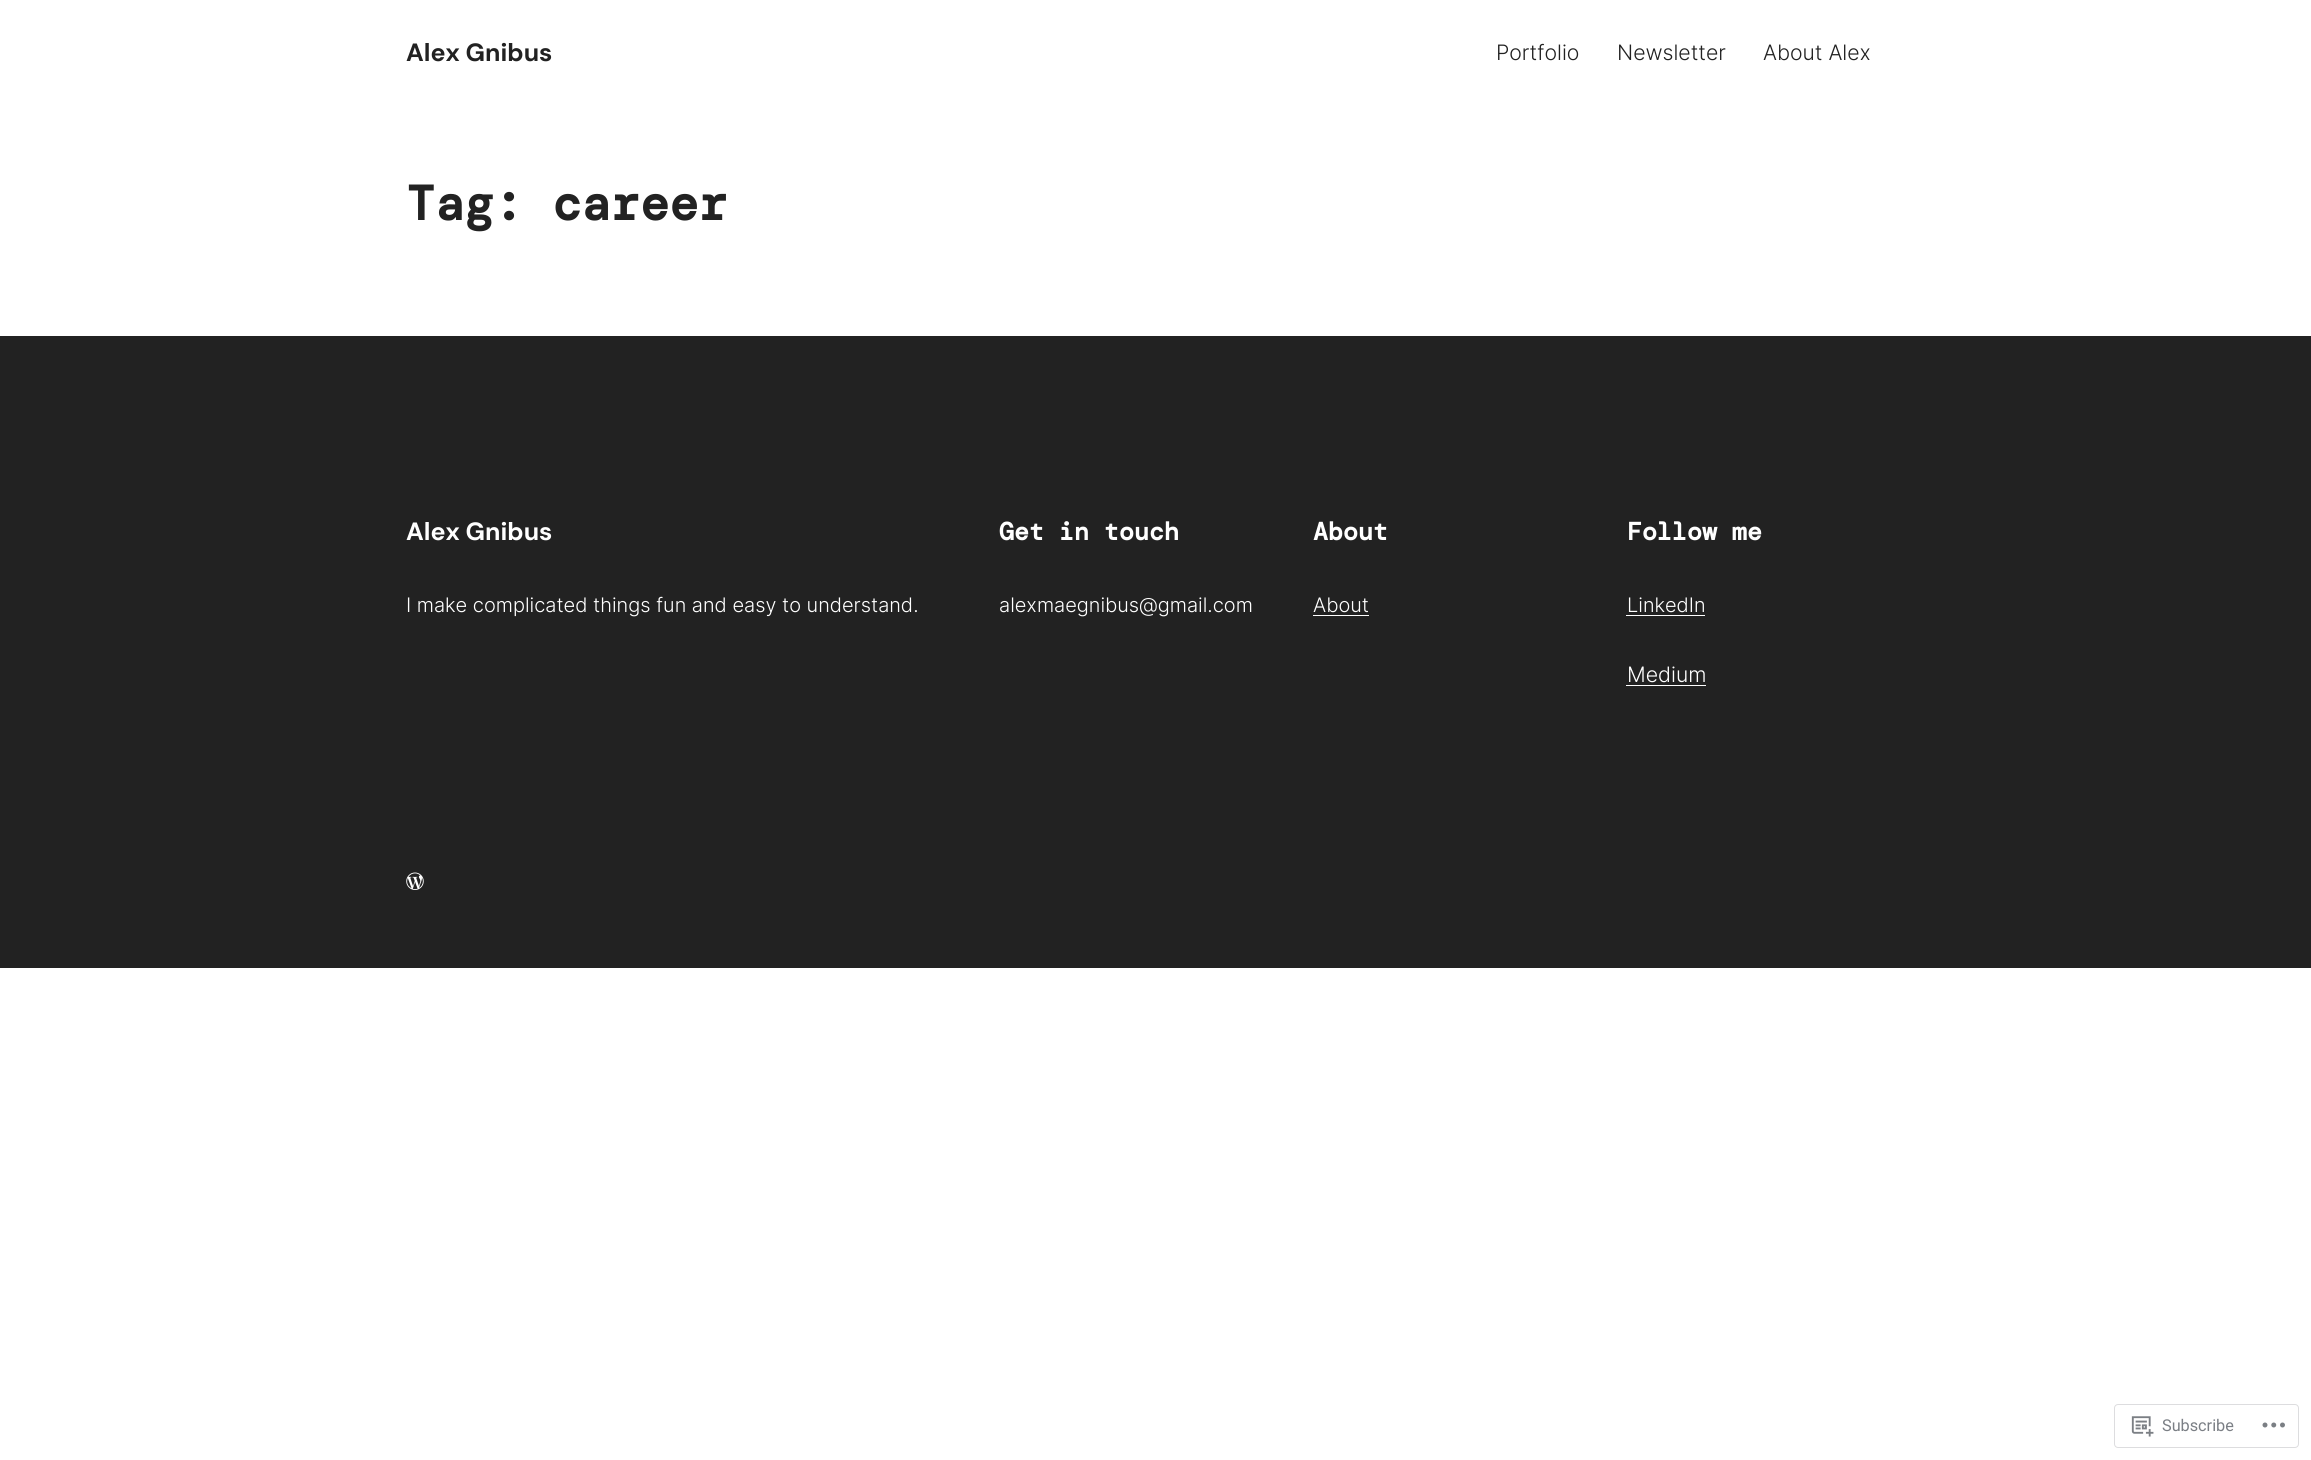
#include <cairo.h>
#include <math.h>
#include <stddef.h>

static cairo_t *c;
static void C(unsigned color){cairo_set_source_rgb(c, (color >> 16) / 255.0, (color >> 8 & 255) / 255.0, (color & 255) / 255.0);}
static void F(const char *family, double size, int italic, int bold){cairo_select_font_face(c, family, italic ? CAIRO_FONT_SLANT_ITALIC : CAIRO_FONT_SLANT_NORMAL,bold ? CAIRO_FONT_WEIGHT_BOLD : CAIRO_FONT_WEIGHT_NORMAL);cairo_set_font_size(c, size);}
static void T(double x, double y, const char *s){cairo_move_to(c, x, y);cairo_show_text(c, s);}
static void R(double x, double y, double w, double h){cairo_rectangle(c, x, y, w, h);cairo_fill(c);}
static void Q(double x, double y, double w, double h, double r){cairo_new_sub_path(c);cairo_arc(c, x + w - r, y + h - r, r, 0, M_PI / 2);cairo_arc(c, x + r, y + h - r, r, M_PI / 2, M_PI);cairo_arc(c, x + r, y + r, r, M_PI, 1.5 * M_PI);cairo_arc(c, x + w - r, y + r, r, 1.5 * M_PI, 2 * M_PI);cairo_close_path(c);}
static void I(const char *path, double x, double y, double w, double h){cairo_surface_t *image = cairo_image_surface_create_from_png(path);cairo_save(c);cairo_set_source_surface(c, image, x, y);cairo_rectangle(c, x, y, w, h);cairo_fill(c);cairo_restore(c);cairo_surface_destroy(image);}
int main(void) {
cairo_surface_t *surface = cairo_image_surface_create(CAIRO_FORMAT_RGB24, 2311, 1460);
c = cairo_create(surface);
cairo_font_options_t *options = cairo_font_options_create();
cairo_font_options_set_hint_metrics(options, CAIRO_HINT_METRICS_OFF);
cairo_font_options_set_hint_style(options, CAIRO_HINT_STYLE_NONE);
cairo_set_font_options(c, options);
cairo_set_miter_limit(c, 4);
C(0xffffff);
cairo_paint(c);
F("DM Sans",25,0,1);
C(0x222222);
T(406,61,"Alex Gnibus");
F("Inter Light",21.25,0,0);
T(1496,60,"Portfolio");
T(1617,60,"Newsletter");
T(1763,60,"About Alex");
F("DM Mono",48.75,0,1);
T(406,220,"Tag: career");
R(0,336,2311,632);
F("DM Sans",25,0,1);
C(0xffffff);
T(406,540,"Alex Gnibus");
F("Inter Light",20,0,0);
T(406,612,"I make complicated things fun and easy to understand.");
F("DM Mono",25,0,1);
T(999,540,"Get in touch");
F("Inter Light",20,0,0);
T(999,612,"alexmaegnibus@gmail.com");
F("DM Mono",25,0,1);
T(1313,540,"About");
F("Inter Light",20,0,0);
T(1313,612,"About");
R(1313,615,56,1);
F("DM Mono",25,0,1);
T(1627,540,"Follow me");
F("Inter Light",20,0,0);
T(1627,612,"LinkedIn");
R(1626,615,79,1);
F("Inter Light",21.25,0,0);
T(1627,682,"Medium");
R(1626,685,80,1);
I("1.png",406,872,18,18);
Q(2114.5,1404.5,184,43,3.5);
C(0xdddddf);
cairo_set_line_width(c,1);
cairo_stroke(c);
I("2.png",2131,1416,23,21);
F("Roboto",16.25,0,0);
C(0x7b7f85);
T(2162,1431,"Subscribe");
I("3.png",2262,1422,23,6);
cairo_surface_write_to_png(surface, "o.png");
cairo_font_options_destroy(options);
cairo_destroy(c);
cairo_surface_destroy(surface);
return 0;
}
